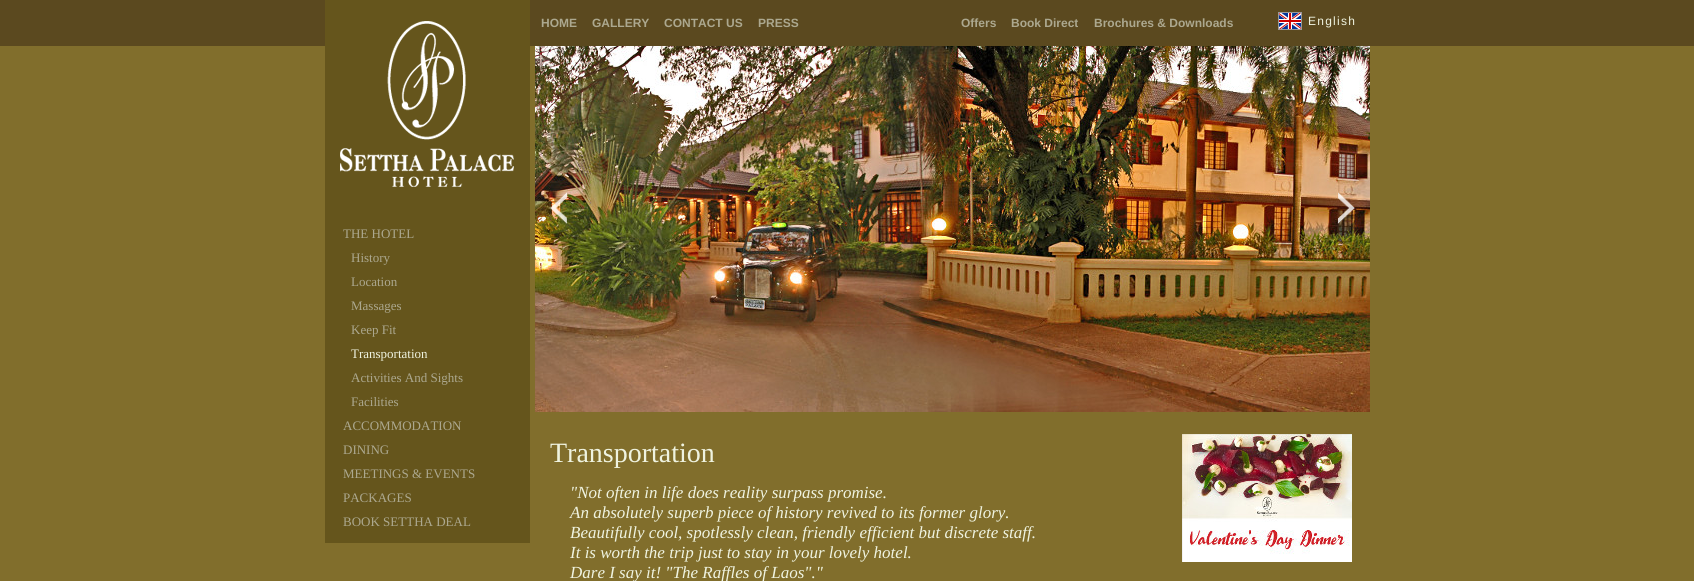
#include <cairo.h>
#include <math.h>
#include <stddef.h>

static cairo_t *c;
static void C(unsigned color){cairo_set_source_rgb(c, (color >> 16) / 255.0, (color >> 8 & 255) / 255.0, (color & 255) / 255.0);}
static void F(const char *family, double size, int italic, int bold){cairo_select_font_face(c, family, italic ? CAIRO_FONT_SLANT_ITALIC : CAIRO_FONT_SLANT_NORMAL,bold ? CAIRO_FONT_WEIGHT_BOLD : CAIRO_FONT_WEIGHT_NORMAL);cairo_set_font_size(c, size);}
static void T(double x, double y, const char *s){cairo_move_to(c, x, y);cairo_show_text(c, s);}
static void L(double x, double y, const char *s, double letter, double word){cairo_move_to(c, x, y);while (*s) {char ch[5] = {0};int n = 0;do ch[n++] = *s++; while ((*s & 0xC0) == 0x80);cairo_show_text(c, ch);cairo_rel_move_to(c, letter + word * (*ch == ' '), 0);}}
static void R(double x, double y, double w, double h){cairo_rectangle(c, x, y, w, h);cairo_fill(c);}
static void I(const char *path, double x, double y, double w, double h){cairo_surface_t *image = cairo_image_surface_create_from_png(path);cairo_save(c);cairo_set_source_surface(c, image, x, y);cairo_rectangle(c, x, y, w, h);cairo_fill(c);cairo_restore(c);cairo_surface_destroy(image);}
int main(void) {
cairo_surface_t *surface = cairo_image_surface_create(CAIRO_FORMAT_RGB24, 1694, 581);
c = cairo_create(surface);
cairo_font_options_t *options = cairo_font_options_create();
cairo_font_options_set_hint_metrics(options, CAIRO_HINT_METRICS_OFF);
cairo_font_options_set_hint_style(options, CAIRO_HINT_STYLE_NONE);
cairo_set_font_options(c, options);
cairo_set_miter_limit(c, 4);
C(0x5b491f);
cairo_paint(c);
F("Liberation Sans",12,0,1);
C(0xaca88f);
T(541,27,"HOME");
T(592,27,"GALLERY");
T(664,27,"CONTACT US");
T(758,27,"PRESS");
T(961,27,"Offers");
T(1011,27,"Book Direct");
T(1094,27,"Brochures & Downloads");
I("1.png",1278,12,24,18);
F("Liberation Sans",12,0,0);
C(0xeff3e0);
L(1308,25,"English",1.25,0);
C(0x816e2c);
R(0,46,1694,535);
C(0x65551c);
R(325,0,205,543);
I("2.png",340,21,174,166);
I("3.png",535,46,835,366);
I("4.png",550,192,17,32);
I("5.png",1338,192,17,32);
F("Liberation Serif",13,0,0);
C(0xaca88f);
T(343,238,"THE HOTEL");
T(351,262,"History");
T(351,286,"Location");
T(351,310,"Massages");
T(351,334,"Keep Fit");
C(0xeff3e0);
T(351,358,"Transportation");
C(0xaca88f);
T(351,382,"Activities And Sights");
T(351,406,"Facilities");
T(343,430,"ACCOMMODATION");
T(343,454,"DINING");
T(343,478,"MEETINGS & EVENTS");
T(343,502,"PACKAGES");
T(343,526,"BOOK SETTHA DEAL");
F("Liberation Serif",28,0,0);
C(0xeff3e0);
T(550,462,"Transportation");
F("Liberation Serif",17,1,0);
T(570,498,"\"Not often in life does reality surpass promise.");
T(570,518,"An absolutely superb piece of history revived to its former glory.");
T(570,538,"Beautifully cool, spotlessly clean, friendly efficient but discrete staff.");
T(570,558,"It is worth the trip just to stay in your lovely hotel.");
T(570,578,"Dare I say it! \"The Raffles of Laos\".\"");
I("6.png",1182,434,170,128);
cairo_surface_write_to_png(surface, "o.png");
cairo_font_options_destroy(options);
cairo_destroy(c);
cairo_surface_destroy(surface);
return 0;
}
